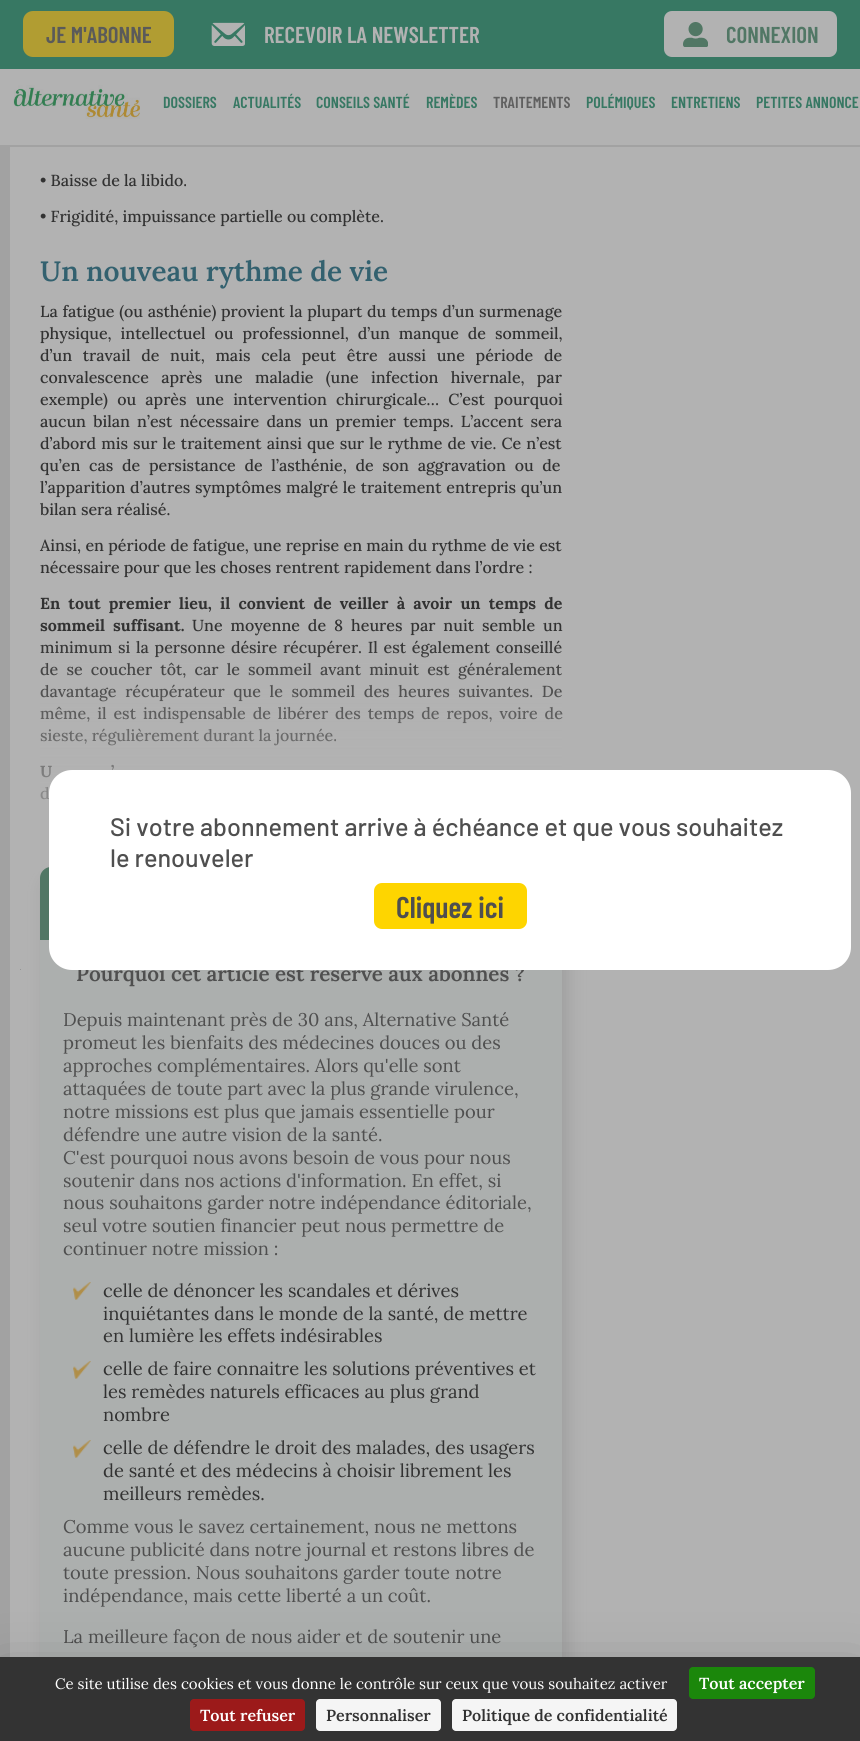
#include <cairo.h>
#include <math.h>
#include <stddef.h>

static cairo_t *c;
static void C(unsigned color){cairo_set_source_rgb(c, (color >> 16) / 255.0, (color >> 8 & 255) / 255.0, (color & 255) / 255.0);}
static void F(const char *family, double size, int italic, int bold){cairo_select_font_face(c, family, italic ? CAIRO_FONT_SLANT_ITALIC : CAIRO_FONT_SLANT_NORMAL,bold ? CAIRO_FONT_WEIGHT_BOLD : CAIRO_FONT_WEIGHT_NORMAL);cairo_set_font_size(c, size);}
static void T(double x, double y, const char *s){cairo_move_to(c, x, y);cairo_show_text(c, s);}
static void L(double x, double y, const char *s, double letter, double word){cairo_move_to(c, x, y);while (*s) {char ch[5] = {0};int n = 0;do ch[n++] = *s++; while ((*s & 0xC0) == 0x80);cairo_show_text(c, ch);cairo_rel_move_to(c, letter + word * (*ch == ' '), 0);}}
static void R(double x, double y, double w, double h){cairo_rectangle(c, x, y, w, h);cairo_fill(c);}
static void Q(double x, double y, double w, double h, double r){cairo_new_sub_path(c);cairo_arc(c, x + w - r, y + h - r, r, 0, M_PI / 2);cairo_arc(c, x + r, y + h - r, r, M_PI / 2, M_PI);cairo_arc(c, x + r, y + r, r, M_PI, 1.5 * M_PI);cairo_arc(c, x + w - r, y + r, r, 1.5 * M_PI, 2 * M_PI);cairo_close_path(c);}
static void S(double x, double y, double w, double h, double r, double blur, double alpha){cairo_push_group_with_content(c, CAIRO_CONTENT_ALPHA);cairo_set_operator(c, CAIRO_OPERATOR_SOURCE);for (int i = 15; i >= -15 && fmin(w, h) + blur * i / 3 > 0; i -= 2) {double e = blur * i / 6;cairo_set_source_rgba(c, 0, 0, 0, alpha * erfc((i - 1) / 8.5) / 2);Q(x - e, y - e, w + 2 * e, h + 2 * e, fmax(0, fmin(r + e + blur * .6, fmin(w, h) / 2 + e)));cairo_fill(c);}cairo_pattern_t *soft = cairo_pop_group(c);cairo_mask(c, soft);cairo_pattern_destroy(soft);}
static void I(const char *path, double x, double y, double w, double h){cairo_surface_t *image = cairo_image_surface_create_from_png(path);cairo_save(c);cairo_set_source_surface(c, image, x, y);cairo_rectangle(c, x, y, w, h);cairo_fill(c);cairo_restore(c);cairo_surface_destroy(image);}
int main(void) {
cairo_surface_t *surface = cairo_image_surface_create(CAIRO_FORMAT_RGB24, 860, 1741);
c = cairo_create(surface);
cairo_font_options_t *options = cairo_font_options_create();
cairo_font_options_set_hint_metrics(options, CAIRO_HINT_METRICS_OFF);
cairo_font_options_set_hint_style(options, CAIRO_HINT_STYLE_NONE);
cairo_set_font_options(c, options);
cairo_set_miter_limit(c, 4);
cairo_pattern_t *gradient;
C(0xa2a2a2);
cairo_paint(c);
C(0x377863);
R(0,0,860,69);
C(0xb19d32);
Q(23,11,151,46,10);
cairo_fill(c);
F("Barlow Condensed SemiBold",23,0,0);
C(0x5a5a5a);
T(46,43,"JE M'ABONNE");
I("1.png",211,22,34,24);
C(0xb2b2b2);
T(264,43,"RECEVOIR LA NEWSLETTER");
Q(664,11,173,46,8);
cairo_fill(c);
I("2.png",683,22,25,25);
C(0x517765);
T(726,43,"CONNEXION");
C(0xb2b2b2);
R(0,69,860,76);
I("3.png",13,85,127,34);
F("Barlow Condensed SemiBold",16,0,0);
C(0x377863);
T(163,108,"DOSSIERS");
T(233,108,"ACTUALITÉS");
T(316,108,"CONSEILS SANTÉ");
T(426,108,"REMÈDES");
C(0x606060);
T(493,108,"TRAITEMENTS");
C(0x377863);
T(586,108,"POLÉMIQUES");
T(671,108,"ENTRETIENS");
T(756,108,"PETITES ANNONCE");
C(0xb2b2b2);
R(10,147,850,1510);
F("Lora Medium",16,0,0);
C(0x323232);
T(40,186,"• Baisse de la libido.");
T(40,222,"• Frigidité, impuissance partielle ou complète.");
F("Lora SemiBold",28,0,0);
C(0x33616f);
T(40,281,"Un nouveau rythme de vie");
F("Lora Medium",16,0,0);
C(0x323232);
L(40,317,"La fatigue (ou asthénie) provient la plupart du temps d’un surmenage",0,.5);
L(40,339,"physique, intellectuel ou professionnel, d’un manque de sommeil,",0,4.75);
L(40,361,"d’un travail de nuit, mais cela peut être aussi une période de",0,6.5);
L(40,383,"convalescence après une maladie (une infection hivernale, par",0,8);
L(40,405,"exemple) ou après une intervention chirurgicale… C’est pourquoi",0,5);
L(40,427,"aucun bilan n’est nécessaire dans un premier temps. L’accent sera",0,3);
L(40,449,"d’abord mis sur le traitement ainsi que sur le rythme de vie. Ce n’est",0,.9);
L(40,471,"qu’en cas de persistance de l’asthénie, de son aggravation ou de",0,4.5);
L(40,493,"l’apparition d’autres symptômes malgré le traitement entrepris qu’un",0,.5);
T(40,515,"bilan sera réalisé.");
L(40,551,"Ainsi, en période de fatigue, une reprise en main du rythme de vie est",0,.1);
T(40,573,"nécessaire pour que les choses rentrent rapidement dans l’ordre :");
F("Lora",16,0,1);
L(40,609,"En tout premier lieu, il convient de veiller à avoir un temps de",0,4);
L(40,631,"sommeil suffisant.",0,3.75);
F("Lora Medium",16,0,0);
L(192,631,"Une moyenne de 8 heures par nuit semble un",0,3.75);
L(40,653,"minimum si la personne désire récupérer. Il est également conseillé",0,1.5);
L(40,675,"de se coucher tôt, car le sommeil avant minuit est généralement",0,4);
L(40,697,"davantage récupérateur que le sommeil des heures suivantes. De",0,4.5);
L(40,719,"même, il est indispensable de libérer des temps de repos, voire de",0,2.75);
T(40,741,"sieste, régulièrement durant la journée.");
F("Lora",16,0,1);
L(40,777,"U",0,1);
L(111,777,"’",0,1);
F("Lora Medium",16,0,0);
L(40,799,"d",0,6);
C(0x7d7d7d);
S(46,878,522,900,11,8.5,.38);
C(0xacafae);
Q(40,867,522,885,11);
cairo_fill(c);
gradient = cairo_pattern_create_linear(301,867,301,637);
cairo_pattern_add_color_stop_rgba(gradient,0,0.698,0.698,0.698,1);
cairo_pattern_add_color_stop_rgba(gradient,1,0.698,0.698,0.698,0);
cairo_set_source(c,gradient);
cairo_pattern_destroy(gradient);
R(40,642,522,158);
C(0x517765);
cairo_new_path(c);
cairo_move_to(c,51,867);
cairo_line_to(c,551,867);
cairo_curve_to(c,557,867,562,872,562,878);
cairo_line_to(c,562,940);
cairo_line_to(c,40,940);
cairo_line_to(c,40,878);
cairo_curve_to(c,40,872,45,867,51,867);
cairo_close_path(c);
cairo_fill(c);
F("Lora SemiBold",20.6,0,0);
C(0x4f4f4f);
T(76,981,"Pourquoi cet article est réservé aux abonnés ?");
F("Lora",18.35,0,0);
T(63,1026,"Depuis maintenant près de 30 ans, Alternative Santé");
T(63,1049,"promeut les bienfaits des médecines douces ou des");
T(63,1072,"approches complémentaires. Alors qu'elle sont");
T(63,1095,"attaquées de toute part avec la plus grande virulence,");
T(63,1118,"notre missions est plus que jamais essentielle pour");
T(63,1141,"défendre une autre vision de la santé.");
T(63,1164,"C'est pourquoi nous avons besoin de vous pour nous");
T(63,1187,"soutenir dans nos actions d'information. En effet, si");
T(63,1209,"nous souhaitons garder notre indépendance éditoriale,");
T(63,1232,"seul votre soutien financier peut nous permettre de");
T(63,1255,"continuer notre mission :");
I("4.png",73,1282,18,18);
C(0x323232);
T(103,1297,"celle de dénoncer les scandales et dérives");
T(103,1320,"inquiétantes dans le monde de la santé, de mettre");
T(103,1342,"en lumière les effets indésirables");
I("4.png",73,1361,18,18);
T(103,1375,"celle de faire connaitre les solutions préventives et");
T(103,1398,"les remèdes naturels efficaces au plus grand");
T(103,1421,"nombre");
I("4.png",73,1440,18,18);
T(103,1454,"celle de défendre le droit des malades, des usagers");
T(103,1477,"de santé et des médecins à choisir librement les");
T(103,1500,"meilleurs remèdes.");
C(0x4f4f4f);
T(63,1533,"Comme vous le savez certainement, nous ne mettons");
T(63,1556,"aucune publicité dans notre journal et restons libres de");
T(63,1579,"toute pression. Nous souhaitons garder toute notre");
T(63,1602,"indépendance, mais cette liberté a un coût.");
T(63,1643,"La meilleure façon de nous aider et de soutenir une");
cairo_save(c);
cairo_rectangle(c,20,770,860,200);
cairo_clip(c);
C(0x7c7c7c);
cairo_new_path(c);
cairo_move_to(c,20,969);
cairo_line_to(c,20,974);
cairo_line_to(c,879,974);
cairo_curve_to(c,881,974,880,970,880,969);
cairo_line_to(c,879,970);
cairo_line_to(c,21,970);
cairo_close_path(c);
cairo_fill(c);
cairo_restore(c);
C(0xffffff);
Q(49,770,802,200,23);
cairo_fill(c);
F("Barlow Medium",25.25,0,0);
C(0x4f4f4f);
T(110,836,"Si votre abonnement arrive à échéance et que vous souhaitez");
T(110,867,"le renouveler");
C(0xfed500);
Q(374,883,153,46,8);
cairo_fill(c);
F("Barlow Condensed SemiBold",30,0,0);
C(0x4f4f4f);
T(396,918,"Cliquez ici");
C(0x000000);
S(0,1677,860,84,0,30,.25);
C(0x333333);
R(0,1657,860,84);
F("Lora",15,0,0);
C(0xffffff);
T(55,1689,"Ce site utilise des cookies et vous donne le contrôle sur ceux que vous souhaitez activer");
C(0x1b870b);
Q(689,1667,126,32,4);
cairo_fill(c);
F("Lora SemiBold",16,0,0);
C(0xffffff);
T(699,1689,"Tout accepter");
C(0x9c1a1a);
Q(190,1699,115,32,4);
cairo_fill(c);
C(0xffffff);
T(200,1721,"Tout refuser");
C(0xf5f5f5);
Q(316,1699,125,32,4);
cairo_fill(c);
C(0x323232);
T(326,1721,"Personnaliser");
C(0xf5f5f5);
Q(452,1699,225,32,4);
cairo_fill(c);
C(0x323232);
T(462,1721,"Politique de confidentialité");
cairo_surface_write_to_png(surface, "o.png");
cairo_font_options_destroy(options);
cairo_destroy(c);
cairo_surface_destroy(surface);
return 0;
}
